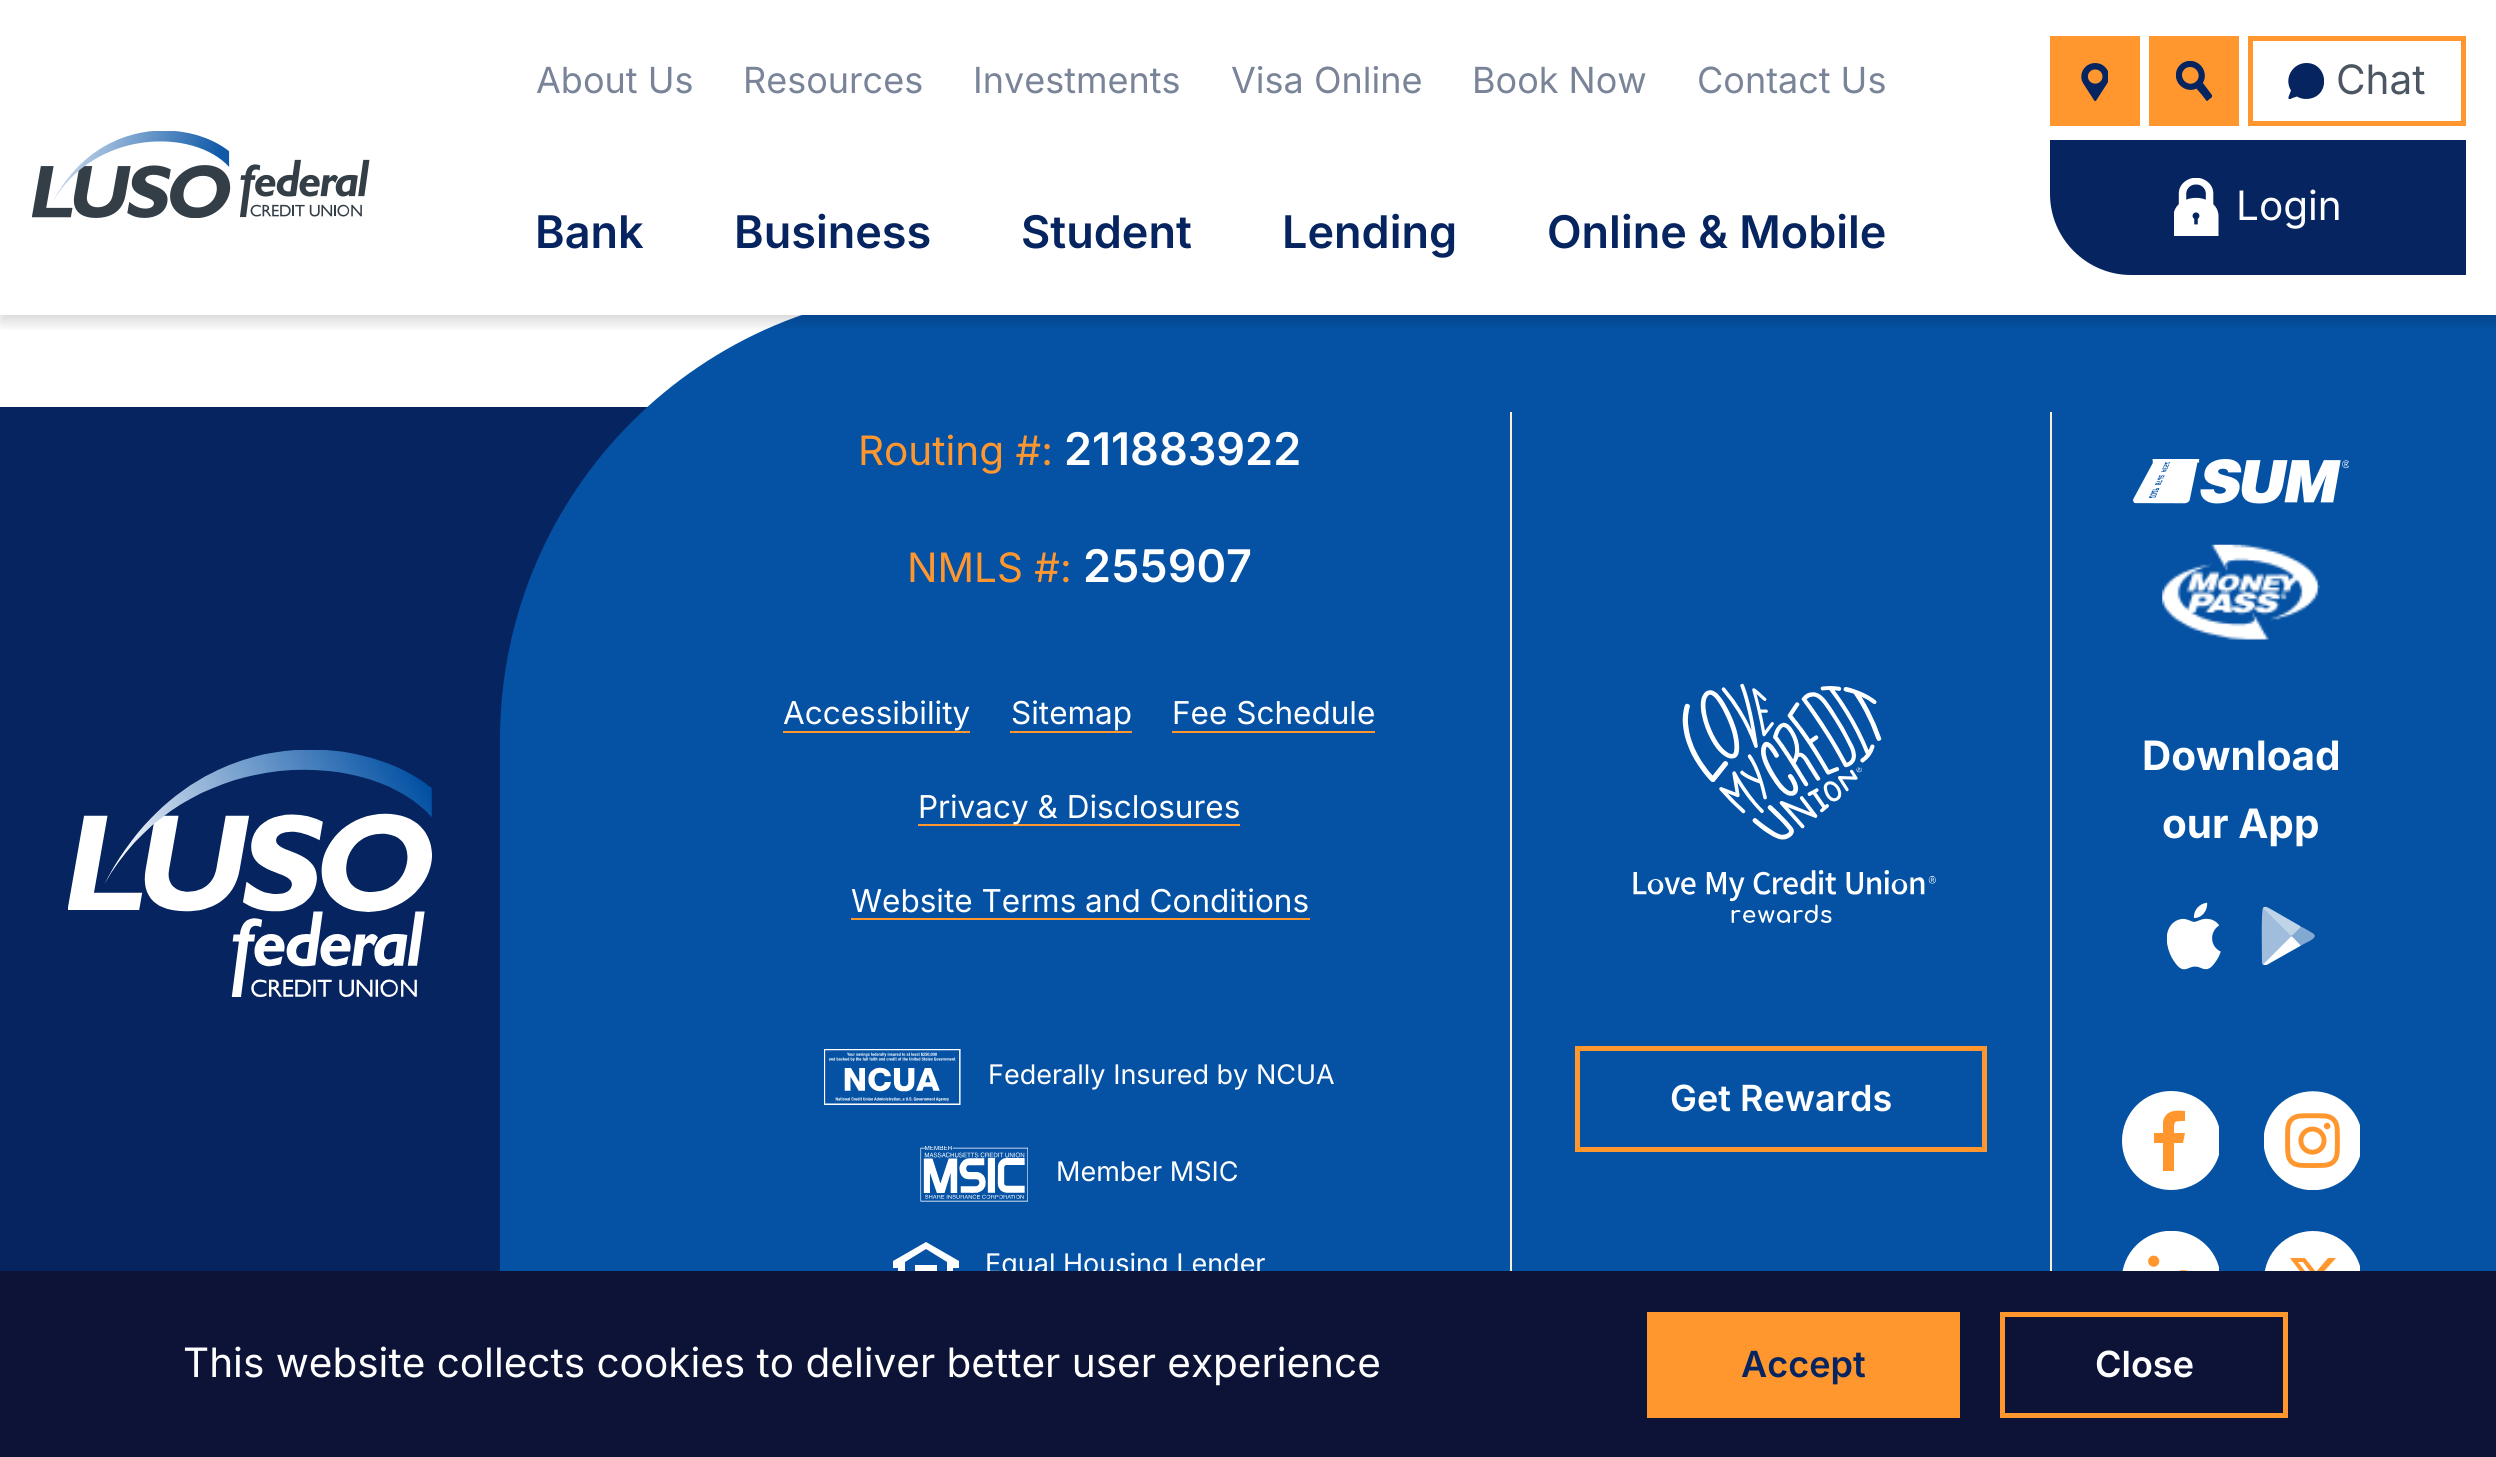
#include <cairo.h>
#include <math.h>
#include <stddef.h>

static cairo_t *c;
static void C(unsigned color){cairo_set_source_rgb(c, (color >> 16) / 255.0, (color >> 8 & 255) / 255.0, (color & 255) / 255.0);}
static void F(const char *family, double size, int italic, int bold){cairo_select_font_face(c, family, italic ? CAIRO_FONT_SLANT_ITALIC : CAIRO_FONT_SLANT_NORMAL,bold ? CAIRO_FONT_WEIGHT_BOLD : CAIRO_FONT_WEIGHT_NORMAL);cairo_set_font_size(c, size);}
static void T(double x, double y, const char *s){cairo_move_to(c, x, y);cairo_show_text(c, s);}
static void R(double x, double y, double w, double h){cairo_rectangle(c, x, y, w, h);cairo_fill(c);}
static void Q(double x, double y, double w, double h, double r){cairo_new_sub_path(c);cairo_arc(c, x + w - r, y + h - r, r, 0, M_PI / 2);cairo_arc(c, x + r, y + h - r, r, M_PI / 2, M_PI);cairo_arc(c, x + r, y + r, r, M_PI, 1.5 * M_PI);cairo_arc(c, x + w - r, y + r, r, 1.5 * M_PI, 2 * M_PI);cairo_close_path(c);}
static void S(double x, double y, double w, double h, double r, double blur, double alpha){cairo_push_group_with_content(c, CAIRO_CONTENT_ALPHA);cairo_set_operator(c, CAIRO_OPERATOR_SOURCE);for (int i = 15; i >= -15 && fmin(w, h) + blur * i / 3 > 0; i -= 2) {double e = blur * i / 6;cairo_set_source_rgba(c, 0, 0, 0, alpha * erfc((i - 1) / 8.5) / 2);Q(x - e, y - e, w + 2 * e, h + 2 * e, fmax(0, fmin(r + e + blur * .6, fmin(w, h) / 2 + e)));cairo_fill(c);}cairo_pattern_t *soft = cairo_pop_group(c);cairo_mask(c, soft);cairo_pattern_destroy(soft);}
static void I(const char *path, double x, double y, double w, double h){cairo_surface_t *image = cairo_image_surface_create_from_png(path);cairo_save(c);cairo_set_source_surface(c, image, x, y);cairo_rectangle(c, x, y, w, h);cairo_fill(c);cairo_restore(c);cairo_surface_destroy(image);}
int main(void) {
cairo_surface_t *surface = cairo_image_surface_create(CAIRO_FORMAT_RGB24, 2496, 1457);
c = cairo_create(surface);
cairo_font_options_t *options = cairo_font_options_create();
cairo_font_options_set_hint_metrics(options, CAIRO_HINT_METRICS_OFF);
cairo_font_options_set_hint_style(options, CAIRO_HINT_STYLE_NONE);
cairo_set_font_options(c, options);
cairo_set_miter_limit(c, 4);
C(0xffffff);
cairo_paint(c);
C(0x062460);
R(0,407,648,864);
C(0x0552a5);
cairo_new_path(c);
cairo_move_to(c,950,290);
cairo_line_to(c,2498,290);
cairo_line_to(c,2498,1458);
cairo_line_to(c,500,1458);
cairo_line_to(c,500,740);
cairo_curve_to(c,500,491.5,701.5,290,950,290);
cairo_close_path(c);
cairo_fill(c);
C(0xffffff);
R(802,290,1694,25);
cairo_save(c);
cairo_rectangle(c,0,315,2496,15);
cairo_clip(c);
C(0x000000);
S(0,7,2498,315,0,7,.16);
cairo_restore(c);
F("Inter",36,0,0);
C(0x7a8499);
T(536,93,"About Us");
T(743,93,"Resources");
T(973,93,"Investments");
T(1231,93,"Visa Online");
T(1472,93,"Book Now");
T(1697,93,"Contact Us");
C(0xff972e);
R(2050,36,90,90);
I("1.png",2081,63,27,38);
R(2149,36,90,90);
I("2.png",2176,61,36,40);
cairo_rectangle(c,2250.5,38.5,213,85);
cairo_set_line_width(c,5);
cairo_stroke(c);
cairo_save(c);
cairo_rectangle(c,2288,63,36,36);
cairo_clip(c);
C(0x062460);
cairo_new_path(c);
cairo_move_to(c,2306.5,63);
cairo_curve_to(c,2292.5,63,2283.5,78.5,2291,90.5);
cairo_line_to(c,2288.5,97);
cairo_line_to(c,2288.5,98.5);
cairo_curve_to(c,2289.5,100,2291.5,98.5,2292.5,98);
cairo_line_to(c,2297,96.5);
cairo_curve_to(c,2301,99,2306,99.5,2310.5,98.5);
cairo_curve_to(c,2331,94,2327.5,63,2306.5,63);
cairo_close_path(c);
cairo_fill(c);
cairo_restore(c);
F("Inter",40.5,0,0);
C(0x4b5662);
T(2336,94,"Chat");
C(0x062460);
cairo_new_path(c);
cairo_move_to(c,2050,140);
cairo_line_to(c,2466,140);
cairo_line_to(c,2466,275);
cairo_line_to(c,2131,275);
cairo_curve_to(c,2086.5,275,2050,238.5,2050,194);
cairo_close_path(c);
cairo_fill(c);
I("3.png",2174,178,45,58);
C(0xffffff);
T(2236,220,"Login");
I("4.png",32,131,338,87);
F("Inter SemiBold",45,0,0);
C(0x062460);
T(535,248,"Bank");
T(734,248,"Business");
T(1021,248,"Student");
T(1282,248,"Lending");
T(1547,248,"Online & Mobile");
I("5.png",68,750,364,247);
C(0xf8f1d0);
R(1510,412,2,859);
F("Inter",40.5,0,0);
C(0xff972e);
T(858,465,"Routing #:");
F("Inter SemiBold",45,0,0);
C(0xffffff);
T(1064,465,"211883922");
F("Inter",40.5,0,0);
C(0xff972e);
T(907,582,"NMLS #:");
F("Inter SemiBold",45,0,0);
C(0xffffff);
T(1083,582,"255907");
F("Inter",31.5,0,0);
T(783,724,"Accessibility");
C(0xff972e);
R(783,731,187,2);
C(0xffffff);
T(1011,724,"Sitemap");
C(0xff972e);
R(1010,731,122,2);
C(0xffffff);
T(1172,724,"Fee Schedule");
C(0xff972e);
R(1172,731,203,2);
R(918,824,322,2);
C(0xffffff);
T(918,818,"Privacy & Disclosures");
T(851,912,"Website Terms and Conditions");
C(0xff972e);
R(851,918,459,2);
I("6.png",824,1049,137,56);
F("Inter",27,0,0);
C(0xffffff);
T(988,1084,"Federally Insured by NCUA");
I("7.png",920,1146,108,56);
T(1056,1181,"Member MSIC");
cairo_new_path(c);
cairo_move_to(c,915,1273);
cairo_line_to(c,915,1279);
cairo_line_to(c,937,1279);
cairo_line_to(c,937,1273);
cairo_close_path(c);
cairo_move_to(c,915,1265);
cairo_line_to(c,915,1271);
cairo_line_to(c,937,1271);
cairo_line_to(c,937,1265);
cairo_close_path(c);
cairo_move_to(c,905,1262);
cairo_line_to(c,926,1249);
cairo_line_to(c,947,1262);
cairo_line_to(c,947,1285);
cairo_line_to(c,905,1285);
cairo_close_path(c);
cairo_move_to(c,926,1242);
cairo_line_to(c,893,1261);
cairo_line_to(c,893,1268);
cairo_line_to(c,898,1268);
cairo_line_to(c,898,1291);
cairo_line_to(c,953,1291);
cairo_line_to(c,953,1268);
cairo_line_to(c,959,1268);
cairo_line_to(c,959,1261);
cairo_close_path(c);
cairo_fill(c);
T(985,1273,"Equal Housing Lender");
I("8.png",2133,459,216,45);
I("9.png",2162,544,158,96);
F("Inter",40.5,0,1);
T(2142,770,"Download");
T(2162,838,"our App");
I("10.png",2167,902,54,68);
C(0xa0bddd);
cairo_new_path(c);
cairo_move_to(c,2264,908);
cairo_line_to(c,2263,908);
cairo_curve_to(c,2261,910,2262,956,2262,963);
cairo_line_to(c,2263,965);
cairo_line_to(c,2291,937);
cairo_line_to(c,2291,935);
cairo_close_path(c);
cairo_fill(c);
C(0x82a9d2);
cairo_new_path(c);
cairo_move_to(c,2302,927);
cairo_line_to(c,2300,927);
cairo_line_to(c,2292,935);
cairo_line_to(c,2292,937);
cairo_line_to(c,2301,945.5);
cairo_line_to(c,2310.5,940.5);
cairo_curve_to(c,2318,936,2314.5,934,2309,931);
cairo_close_path(c);
cairo_fill(c);
cairo_set_source_rgba(c,1,1,1,0.75);
cairo_new_path(c);
cairo_move_to(c,2263,907.5);
cairo_line_to(c,2291.5,936);
cairo_line_to(c,2301,926.5);
cairo_line_to(c,2271.5,909.5);
cairo_curve_to(c,2269.5,908.5,2265.5,905.5,2263,907.5);
cairo_close_path(c);
cairo_fill(c);
cairo_save(c);
cairo_rectangle(c,2261,907,54,58);
cairo_clip(c);
C(0xffffff);
cairo_new_path(c);
cairo_move_to(c,2263,964.5);
cairo_line_to(c,2291.5,936);
cairo_line_to(c,2301,945.5);
cairo_line_to(c,2267.5,964.5);
cairo_curve_to(c,2266.5,965.5,2264.5,965.5,2263,964.5);
cairo_close_path(c);
cairo_fill(c);
cairo_restore(c);
cairo_save(c);
cairo_rectangle(c,2122,1091,97,99);
cairo_clip(c);
C(0xffffff);
cairo_new_path(c);
cairo_move_to(c,2221,1141);
cairo_curve_to(c,2221,1168,2199,1190,2171,1190);
cairo_curve_to(c,2144,1190,2122,1168,2122,1141);
cairo_curve_to(c,2122,1113,2144,1091,2171,1091);
cairo_curve_to(c,2199,1091,2221,1113,2221,1141);
cairo_fill(c);
cairo_restore(c);
C(0xff972e);
cairo_new_path(c);
cairo_move_to(c,2185,1111);
cairo_line_to(c,2185,1121);
cairo_curve_to(c,2173,1121,2174,1121,2174,1133);
cairo_line_to(c,2185,1133);
cairo_line_to(c,2183,1143);
cairo_line_to(c,2174,1143);
cairo_line_to(c,2174,1171);
cairo_line_to(c,2163,1171);
cairo_line_to(c,2163,1143);
cairo_line_to(c,2154,1143);
cairo_line_to(c,2154,1133);
cairo_line_to(c,2163,1133);
cairo_line_to(c,2163,1122);
cairo_curve_to(c,2165,1110,2176,1110,2185,1111);
cairo_fill(c);
I("11.png",2264,1091,96,99);
I("12.png",2122,1231,97,40);
cairo_save(c);
cairo_rectangle(c,2264,1231,96,97);
cairo_clip(c);
C(0xffffff);
cairo_new_path(c);
cairo_move_to(c,2362,1280);
cairo_curve_to(c,2362,1308,2340,1330,2313,1330);
cairo_curve_to(c,2286,1330,2264,1308,2264,1280);
cairo_curve_to(c,2264,1253,2286,1231,2313,1231);
cairo_curve_to(c,2340,1231,2362,1253,2362,1280);
cairo_fill(c);
cairo_restore(c);
cairo_new_path(c);
cairo_move_to(c,2298,1262);
cairo_line_to(c,2303,1262);
cairo_line_to(c,2330,1298);
cairo_line_to(c,2326,1298);
cairo_close_path(c);
cairo_move_to(c,2328,1258);
cairo_line_to(c,2316,1272);
cairo_line_to(c,2305,1258);
cairo_line_to(c,2290,1258);
cairo_line_to(c,2308,1282);
cairo_line_to(c,2291,1302);
cairo_line_to(c,2298,1302);
cairo_line_to(c,2312,1287);
cairo_line_to(c,2324,1302);
cairo_line_to(c,2339,1302);
cairo_line_to(c,2319,1277);
cairo_line_to(c,2336,1258);
cairo_close_path(c);
cairo_fill(c);
C(0xf8f1d0);
R(2050,412,2,859);
I("13.png",1633,683,303,240);
cairo_rectangle(c,1577.5,1048.5,407,101);
C(0xff972e);
cairo_stroke(c);
F("Inter SemiBold",36,0,0);
C(0xffffff);
T(1670,1111,"Get Rewards");
C(0x0c1336);
R(0,1271,2496,186);
F("Inter",40.5,0,0);
C(0xffffff);
T(183,1377,"This website collects cookies to deliver better user experience");
C(0xff972e);
R(1647,1312,313,106);
F("Inter SemiBold",36,0,0);
C(0x062460);
T(1741,1377,"Accept");
cairo_rectangle(c,2002.5,1314.5,283,101);
C(0xff972e);
cairo_stroke(c);
C(0xffffff);
T(2095,1377,"Close");
cairo_surface_write_to_png(surface, "o.png");
cairo_font_options_destroy(options);
cairo_destroy(c);
cairo_surface_destroy(surface);
return 0;
}
